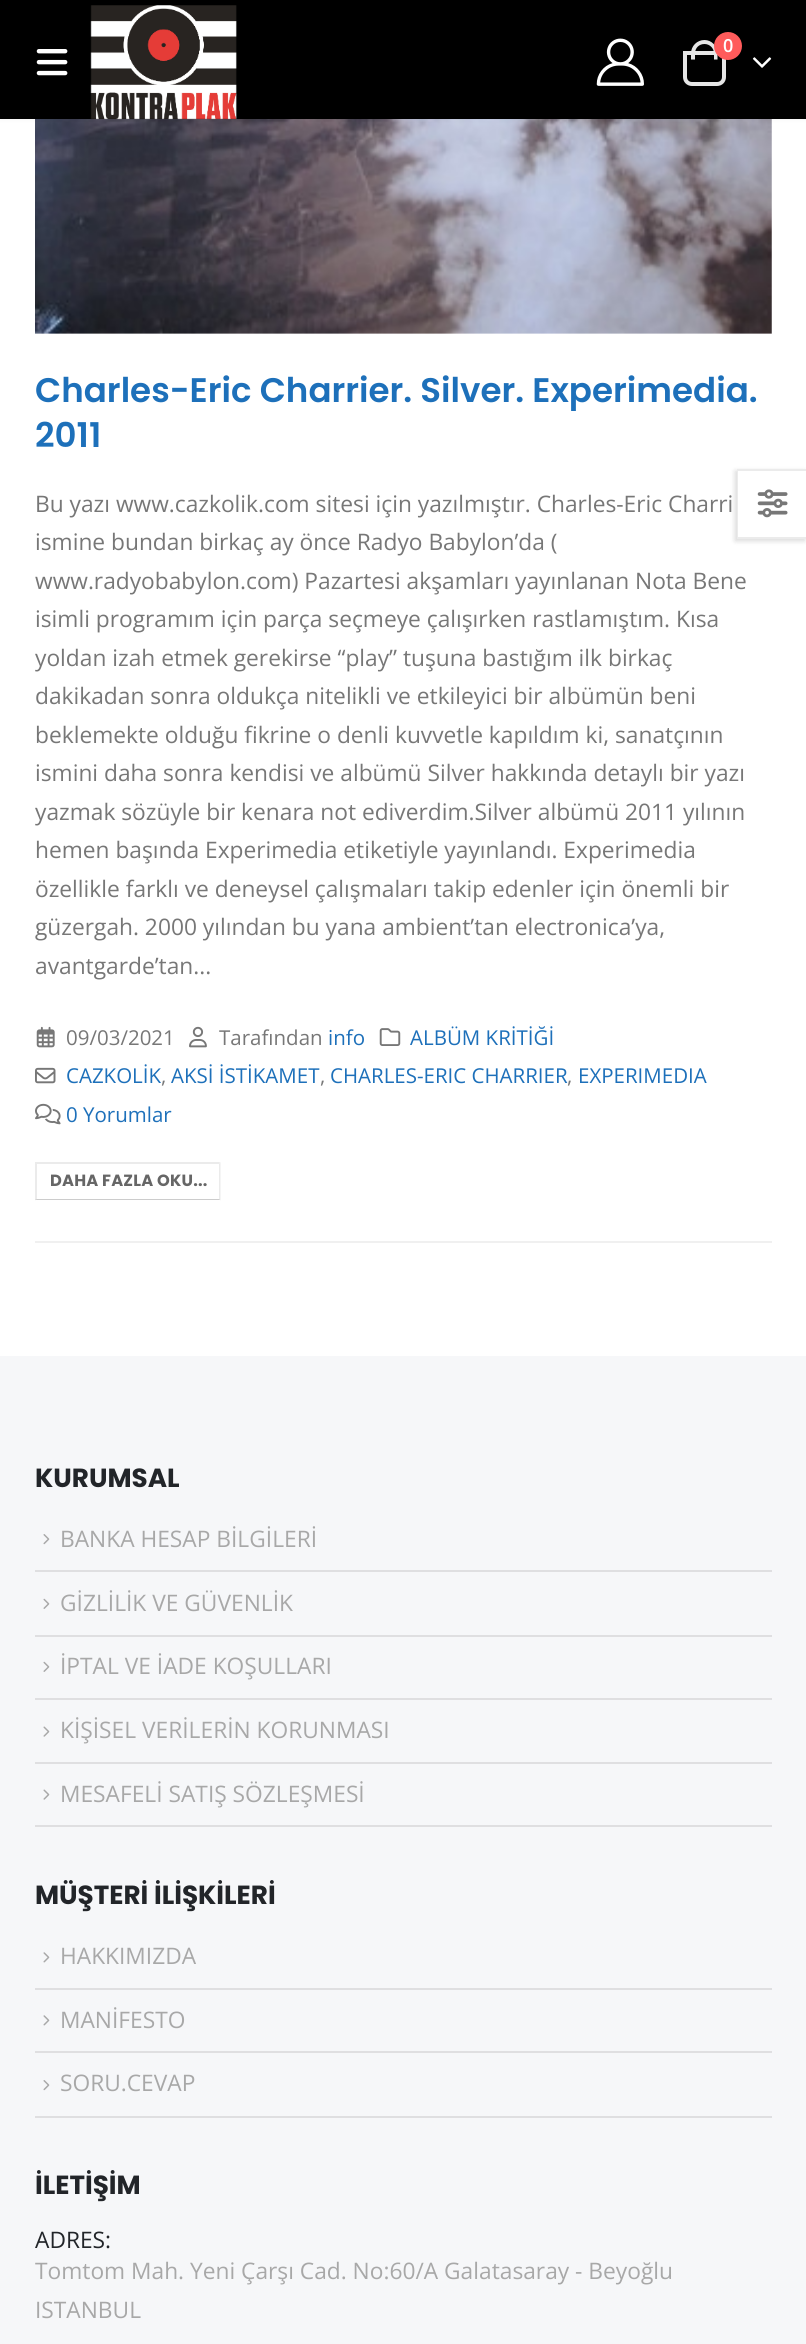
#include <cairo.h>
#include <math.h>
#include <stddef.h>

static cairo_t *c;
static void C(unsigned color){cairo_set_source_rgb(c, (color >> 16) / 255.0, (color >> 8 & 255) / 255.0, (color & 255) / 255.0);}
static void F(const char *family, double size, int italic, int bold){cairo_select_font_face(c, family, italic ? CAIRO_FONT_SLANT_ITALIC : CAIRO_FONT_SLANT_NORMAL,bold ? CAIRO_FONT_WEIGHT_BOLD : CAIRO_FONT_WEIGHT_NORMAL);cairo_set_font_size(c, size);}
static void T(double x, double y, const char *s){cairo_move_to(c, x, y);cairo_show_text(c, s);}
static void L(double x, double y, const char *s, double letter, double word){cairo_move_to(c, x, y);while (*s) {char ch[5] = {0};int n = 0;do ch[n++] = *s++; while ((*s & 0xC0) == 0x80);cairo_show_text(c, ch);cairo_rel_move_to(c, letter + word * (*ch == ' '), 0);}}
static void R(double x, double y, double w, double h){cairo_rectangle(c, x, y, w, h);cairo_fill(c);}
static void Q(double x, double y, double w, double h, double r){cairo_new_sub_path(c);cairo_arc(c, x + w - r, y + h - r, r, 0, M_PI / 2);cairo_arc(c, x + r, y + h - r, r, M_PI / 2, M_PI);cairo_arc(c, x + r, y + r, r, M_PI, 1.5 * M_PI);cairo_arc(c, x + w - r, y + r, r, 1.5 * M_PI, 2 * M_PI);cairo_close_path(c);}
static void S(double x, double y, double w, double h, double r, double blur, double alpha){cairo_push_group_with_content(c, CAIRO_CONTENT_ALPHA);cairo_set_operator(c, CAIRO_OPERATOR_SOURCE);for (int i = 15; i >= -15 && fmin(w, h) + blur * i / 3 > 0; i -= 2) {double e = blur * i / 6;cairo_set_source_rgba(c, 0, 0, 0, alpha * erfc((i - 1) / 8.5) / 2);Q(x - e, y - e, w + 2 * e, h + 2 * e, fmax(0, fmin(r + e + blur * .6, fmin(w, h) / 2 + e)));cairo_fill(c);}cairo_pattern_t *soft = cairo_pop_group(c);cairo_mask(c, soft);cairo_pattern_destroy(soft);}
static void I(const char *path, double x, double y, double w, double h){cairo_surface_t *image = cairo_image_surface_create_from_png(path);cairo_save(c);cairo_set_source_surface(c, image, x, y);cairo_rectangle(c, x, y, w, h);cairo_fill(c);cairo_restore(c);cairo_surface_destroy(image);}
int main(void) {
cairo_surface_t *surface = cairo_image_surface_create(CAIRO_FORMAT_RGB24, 806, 2344);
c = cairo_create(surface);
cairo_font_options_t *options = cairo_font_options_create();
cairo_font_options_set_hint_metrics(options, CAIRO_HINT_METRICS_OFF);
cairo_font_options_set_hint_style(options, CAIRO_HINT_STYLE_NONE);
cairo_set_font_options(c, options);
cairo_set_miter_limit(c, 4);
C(0xf6f7f9);
cairo_paint(c);
C(0xffffff);
R(0,119,806,1237);
I("5.png",35,119,737,215);
C(0x000000);
S(0,0,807,119,0,2.5,.06);
C(0x000000);
R(0,0,806,119);
I("1.png",36,49,32,27);
I("2.png",90,5,147,115);
I("3.png",596,38,48,48);
cairo_new_path(c);
cairo_move_to(c,685,53);
cairo_line_to(c,724,53);
cairo_line_to(c,724,77);
cairo_curve_to(c,724,81,721,84,717,84);
cairo_line_to(c,692,84);
cairo_curve_to(c,688,84,685,81,685,77);
cairo_close_path(c);
C(0xe6e6e6);
cairo_set_line_width(c,4);
cairo_stroke(c);
cairo_set_fill_rule(c,CAIRO_FILL_RULE_EVEN_ODD);
cairo_new_path(c);
cairo_move_to(c,704.5,40);
cairo_curve_to(c,711.5,40,717.5,46,717.5,53.5);
cairo_line_to(c,717.5,59.5);
cairo_line_to(c,691,59.5);
cairo_line_to(c,691,53.5);
cairo_curve_to(c,691,46,697,40,704.5,40);
cairo_close_path(c);
cairo_move_to(c,704.5,44);
cairo_curve_to(c,709.5,44,714,48,714,53.5);
cairo_line_to(c,714,59.5);
cairo_line_to(c,695,59.5);
cairo_line_to(c,695,53.5);
cairo_curve_to(c,695,48,699,44,704.5,44);
cairo_close_path(c);
cairo_fill(c);
C(0xff5b5b);
cairo_arc(c,728,46,14,0,2 * M_PI);
cairo_fill(c);
F("Open Sans SemiBold",18,0,0);
C(0xffffff);
T(723,52,"0");
I("4.png",752,57,20,11);
C(0xf0f0f0);
R(35,1241,737,2);
F("Poppins SemiBold",34.1,0,0);
C(0x1d70ba);
T(35,402,"Charles-Eric Charrier. Silver. Experimedia.");
T(35,447,"2011");
F("Open Sans",22.75,0,0);
C(0x777777);
T(35,512,"Bu yazı www.cazkolik.com sitesi için yazılmıştır. Charles-Eric Charri");
T(35,550,"ismine bundan birkaç ay önce Radyo Babylon’da (");
T(35,589,"www.radyobabylon.com) Pazartesi akşamları yayınlanan Nota Bene");
T(35,627,"isimli programım için parça seçmeye çalışırken rastlamıştım. Kısa");
T(35,666,"yoldan izah etmek gerekirse “play” tuşuna bastığım ilk birkaç");
T(35,704,"dakikadan sonra oldukça nitelikli ve etkileyici bir albümün beni");
T(35,743,"beklemekte olduğu fikrine o denli kuvvetle kapıldım ki, sanatçının");
T(35,781,"ismini daha sonra kendisi ve albümü Silver hakkında detaylı bir yazı");
T(35,820,"yazmak sözüyle bir kenara not ediverdim.Silver albümü 2011 yılının");
T(35,858,"hemen başında Experimedia etiketiyle yayınlandı. Experimedia");
T(35,897,"özellikle farklı ve deneysel çalışmaları takip edenler için önemli bir");
T(35,935,"güzergah. 2000 yılından bu yana ambient’tan electronica’ya,");
T(35,974,"avantgarde’tan...");
I("6.png",36,1026,19,22);
F("Open Sans",20.5,0,0);
T(66,1045,"09/03/2021");
I("7.png",189,1026,18,22);
T(219,1045,"Tarafından");
C(0x1d70ba);
T(328,1045,"info");
I("8.png",379,1028,22,18);
T(410,1045,"ALBÜM KRİTİĞİ");
I("9.png",35,1067,21,17);
T(66,1083,"CAZKOLİK");
C(0x777777);
T(161,1083,",");
C(0x1d70ba);
T(171,1083,"AKSİ İSTİKAMET");
C(0x777777);
T(320,1083,",");
C(0x1d70ba);
T(330,1083,"CHARLES-ERIC CHARRIER");
C(0x777777);
T(567,1083,",");
C(0x1d70ba);
T(578,1083,"EXPERIMEDIA");
I("10.png",35,1103,26,22);
T(66,1122,"0 Yorumlar");
C(0xebebeb);
cairo_set_fill_rule(c,CAIRO_FILL_RULE_WINDING);
cairo_new_path(c);
cairo_move_to(c,35,1162);
cairo_line_to(c,220,1162);
cairo_line_to(c,219,1164);
cairo_line_to(c,37,1164);
cairo_close_path(c);
cairo_fill(c);
cairo_set_source_rgba(c,0,0,0,0.08);
cairo_new_path(c);
cairo_move_to(c,220.5,1162);
cairo_line_to(c,220.5,1200.5);
cairo_line_to(c,219,1199);
cairo_line_to(c,219,1164);
cairo_close_path(c);
cairo_fill(c);
cairo_set_source_rgba(c,0,0,0,0.2);
cairo_new_path(c);
cairo_move_to(c,220,1200);
cairo_line_to(c,35,1200);
cairo_line_to(c,37,1199);
cairo_line_to(c,219,1199);
cairo_close_path(c);
cairo_fill(c);
cairo_set_source_rgba(c,0,0,0,0.08);
cairo_new_path(c);
cairo_move_to(c,35,1200.5);
cairo_line_to(c,35,1162);
cairo_line_to(c,37,1164);
cairo_line_to(c,37,1199);
cairo_close_path(c);
cairo_fill(c);
F("Poppins",16.25,0,1);
C(0x666666);
L(50,1186,"DAHA FAZLA OKU...",.2,0);
C(0x000000);
S(735,471,70,70,0,2.5,.15);
C(0xffffff);
R(737,469,69,70);
C(0xebebeb);
cairo_new_path(c);
cairo_move_to(c,737,469);
cairo_line_to(c,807,469);
cairo_line_to(c,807,471);
cairo_line_to(c,738,471);
cairo_close_path(c);
cairo_fill(c);
cairo_new_path(c);
cairo_move_to(c,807,539);
cairo_line_to(c,737,539);
cairo_line_to(c,738,537);
cairo_line_to(c,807,537);
cairo_close_path(c);
cairo_fill(c);
cairo_set_source_rgba(c,0,0,0,0.08);
cairo_new_path(c);
cairo_move_to(c,737,539);
cairo_line_to(c,737,469);
cairo_line_to(c,738,471);
cairo_line_to(c,738,537);
cairo_close_path(c);
cairo_fill(c);
I("11.png",757,489,31,29);
F("Poppins",26.25,0,1);
C(0x222529);
T(35,1487,"KURUMSAL");
C(0xdfdfe1);
R(35,1825,737,2);
I("12.png",43,1534,7,11);
F("Open Sans",22.75,0,0);
C(0xa8a8a8);
T(60,1547,"BANKA HESAP BİLGİLERİ");
C(0xdfdfe1);
R(35,1570,737,2);
I("13.png",43,1598,7,11);
C(0xa8a8a8);
T(60,1611,"GİZLİLİK VE GÜVENLİK");
C(0xdfdfe1);
R(35,1635,737,2);
I("13.png",43,1661,7,11);
C(0xa8a8a8);
T(60,1674,"İPTAL VE İADE KOŞULLARI");
C(0xdfdfe1);
R(35,1698,737,2);
I("14.png",43,1726,7,11);
C(0xa8a8a8);
T(60,1738,"KİŞİSEL VERİLERİN KORUNMASI");
C(0xdfdfe1);
R(35,1762,737,2);
I("14.png",43,1789,7,11);
C(0xa8a8a8);
T(60,1802,"MESAFELİ SATIŞ SÖZLEŞMESİ");
F("Poppins",26.25,0,1);
C(0x222529);
T(35,1904,"MÜŞTERİ İLİŞKİLERİ");
C(0xdfdfe1);
R(35,2116,737,2);
I("15.png",43,1952,7,11);
F("Open Sans",22.75,0,0);
C(0xa8a8a8);
T(60,1964,"HAKKIMIZDA");
C(0xdfdfe1);
R(35,1988,737,2);
I("15.png",43,2015,7,11);
C(0xa8a8a8);
T(60,2028,"MANİFESTO");
C(0xdfdfe1);
R(35,2051,737,2);
I("12.png",43,2080,7,11);
C(0xa8a8a8);
T(60,2091,"SORU.CEVAP");
F("Poppins",26.25,0,1);
C(0x222529);
T(35,2194,"İLETİŞİM");
F("Open Sans",22.75,0,0);
T(35,2248,"ADRES:");
C(0xa8a8a8);
T(35,2279,"Tomtom Mah. Yeni Çarşı Cad. No:60/A Galatasaray - Beyoğlu");
T(35,2318,"ISTANBUL");
cairo_surface_write_to_png(surface, "o.png");
cairo_font_options_destroy(options);
cairo_destroy(c);
cairo_surface_destroy(surface);
return 0;
}
